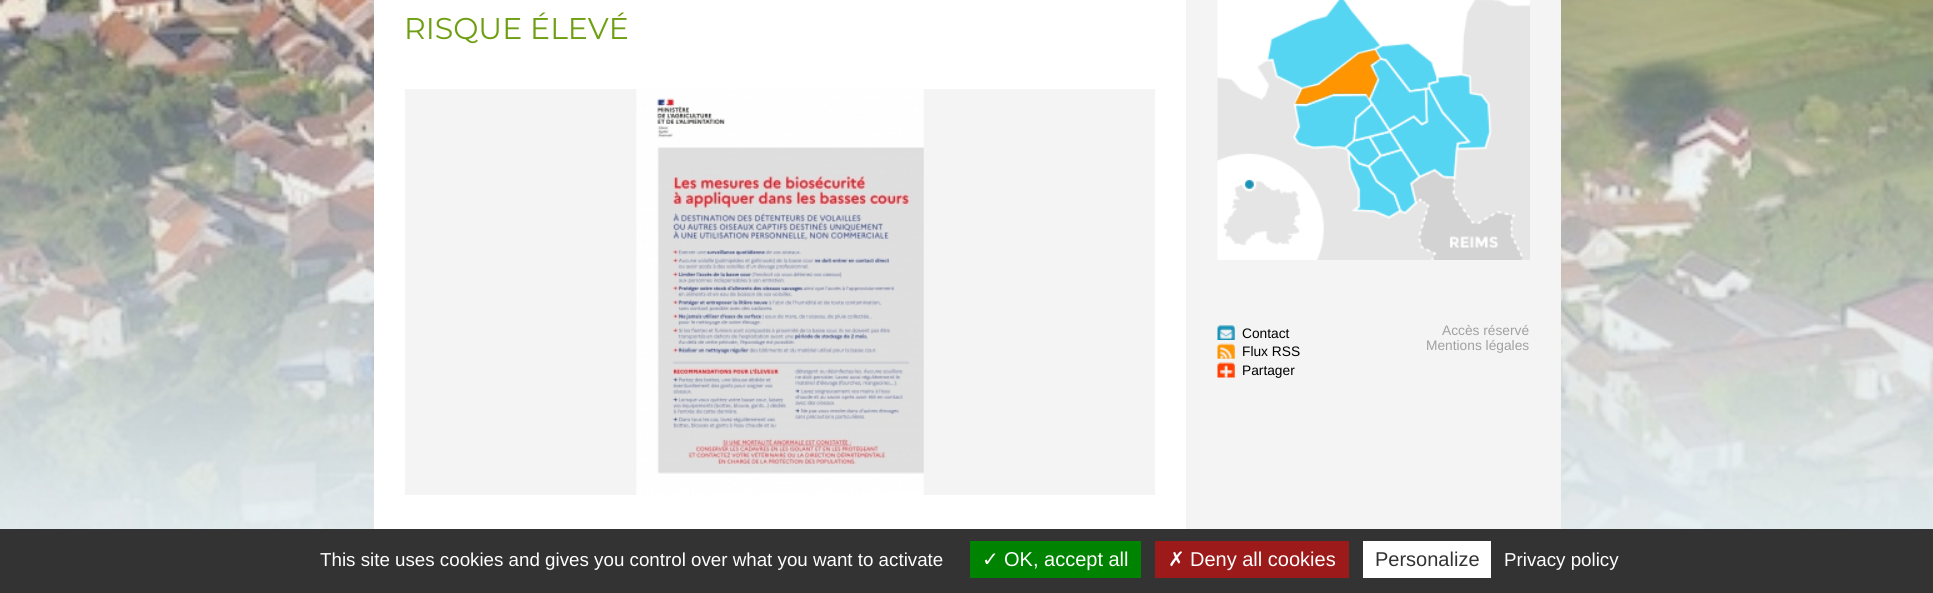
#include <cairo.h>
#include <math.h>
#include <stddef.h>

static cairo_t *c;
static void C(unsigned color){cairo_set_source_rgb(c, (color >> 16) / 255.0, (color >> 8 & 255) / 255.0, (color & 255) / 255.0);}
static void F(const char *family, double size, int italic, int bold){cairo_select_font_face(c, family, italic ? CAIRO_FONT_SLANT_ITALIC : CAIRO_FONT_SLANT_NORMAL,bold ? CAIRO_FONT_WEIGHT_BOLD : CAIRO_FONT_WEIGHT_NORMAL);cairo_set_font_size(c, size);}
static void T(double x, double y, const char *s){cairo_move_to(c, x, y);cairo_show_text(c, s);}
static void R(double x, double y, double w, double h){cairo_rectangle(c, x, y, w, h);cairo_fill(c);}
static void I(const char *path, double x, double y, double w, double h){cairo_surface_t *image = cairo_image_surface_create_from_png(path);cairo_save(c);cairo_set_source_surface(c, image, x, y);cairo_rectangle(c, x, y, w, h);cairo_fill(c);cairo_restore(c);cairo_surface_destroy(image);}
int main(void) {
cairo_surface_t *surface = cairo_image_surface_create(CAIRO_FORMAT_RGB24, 1933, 593);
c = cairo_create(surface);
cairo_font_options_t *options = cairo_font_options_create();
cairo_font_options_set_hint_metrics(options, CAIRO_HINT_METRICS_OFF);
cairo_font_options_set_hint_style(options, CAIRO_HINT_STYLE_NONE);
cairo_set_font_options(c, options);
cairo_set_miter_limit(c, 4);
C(0xffffff);
cairo_paint(c);
I("1.png",0,0,1933,529);
C(0xffffff);
R(374,0,812,529);
F("Montserrat",30,0,0);
C(0x6e9f13);
T(404,39,"RISQUE ÉLEVÉ");
I("2.png",405,89,750,406);
C(0xf4f4f4);
R(1186,0,375,529);
I("3.png",1217,0,313,260);
I("4.png",1294,49,87,55);
I("5.png",1217,325,18,15);
F("Liberation Sans",13.75,0,0);
C(0x000000);
T(1242,338,"Contact");
I("6.png",1217,343,18,16);
T(1242,356,"Flux RSS");
I("7.png",1217,362,18,16);
T(1242,375,"Partager");
C(0xa1a1a1);
T(1442,335,"Accès réservé");
T(1426,350,"Mentions légales");
C(0x333333);
R(0,529,1933,64);
F("Liberation Sans",18.75,0,0);
C(0xffffff);
T(320,566,"This site uses cookies and gives you control over what you want to activate");
C(0x008300);
R(970,541,171,37);
F("DejaVu Sans",20,0,0);
C(0xffffff);
T(982,566,"✓");
F("Liberation Sans",20,0,0);
T(1004,566,"OK, accept all");
C(0x9c1a1a);
R(1155,541,194,37);
F("DejaVu Sans",20,0,0);
C(0xffffff);
T(1168,566,"✗");
F("Liberation Sans",20,0,0);
T(1190,566,"Deny all cookies");
R(1363,541,128,37);
C(0x333333);
T(1375,566,"Personalize");
F("Liberation Sans",18.75,0,0);
C(0xffffff);
T(1504,566,"Privacy policy");
cairo_surface_write_to_png(surface, "o.png");
cairo_font_options_destroy(options);
cairo_destroy(c);
cairo_surface_destroy(surface);
return 0;
}
